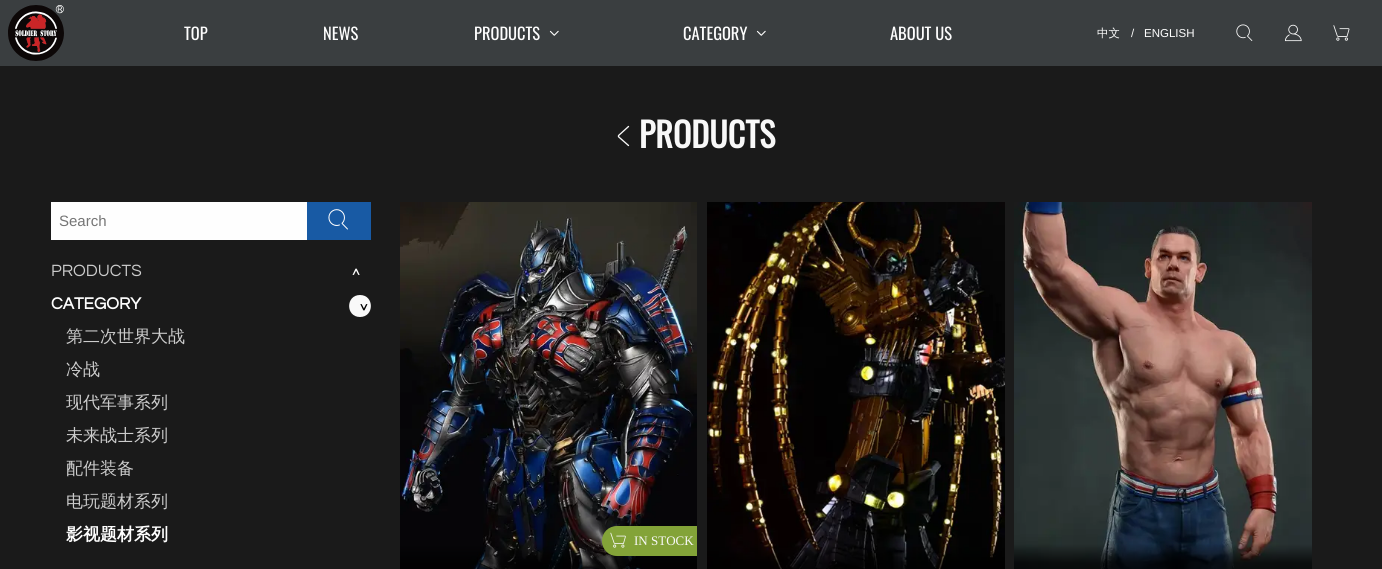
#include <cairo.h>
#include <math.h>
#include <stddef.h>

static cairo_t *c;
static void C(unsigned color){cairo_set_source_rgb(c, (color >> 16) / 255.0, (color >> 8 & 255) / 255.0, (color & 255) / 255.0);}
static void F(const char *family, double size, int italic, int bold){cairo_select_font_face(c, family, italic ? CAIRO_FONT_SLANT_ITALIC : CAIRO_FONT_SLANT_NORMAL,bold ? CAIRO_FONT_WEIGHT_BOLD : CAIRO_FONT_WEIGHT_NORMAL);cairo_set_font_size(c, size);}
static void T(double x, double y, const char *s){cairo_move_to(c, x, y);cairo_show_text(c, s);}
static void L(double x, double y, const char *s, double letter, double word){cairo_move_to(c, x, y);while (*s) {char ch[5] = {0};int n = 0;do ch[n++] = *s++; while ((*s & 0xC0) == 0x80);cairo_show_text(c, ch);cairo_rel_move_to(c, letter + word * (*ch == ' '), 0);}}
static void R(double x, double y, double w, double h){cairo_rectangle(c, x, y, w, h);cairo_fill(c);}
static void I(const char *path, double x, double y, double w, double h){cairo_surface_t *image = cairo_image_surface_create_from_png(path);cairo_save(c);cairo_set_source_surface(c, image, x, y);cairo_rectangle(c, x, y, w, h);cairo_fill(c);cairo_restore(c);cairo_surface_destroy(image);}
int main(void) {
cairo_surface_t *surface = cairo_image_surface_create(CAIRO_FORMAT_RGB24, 1382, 569);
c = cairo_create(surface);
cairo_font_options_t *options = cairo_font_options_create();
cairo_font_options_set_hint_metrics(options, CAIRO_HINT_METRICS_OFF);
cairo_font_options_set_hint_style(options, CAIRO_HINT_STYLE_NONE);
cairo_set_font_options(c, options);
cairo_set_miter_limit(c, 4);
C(0x1a1a1a);
cairo_paint(c);
C(0x3a3e40);
R(0,0,1382,66);
I("1.png",8,5,56,56);
F("Oswald",16.5,0,0);
C(0xfefefe);
T(184,40,"TOP");
T(323,40,"NEWS");
T(474,40,"PRODUCTS");
I("2.png",549,30,10,6);
T(683,40,"CATEGORY");
I("2.png",756,30,10,6);
T(890,40,"ABOUT US");
F("WenQuanYi Zen Hei Medium",11.5,0,0);
T(1097,37,"中文");
F("Liberation Sans",11.5,0,0);
T(1131,37,"/");
T(1144,37,"ENGLISH");
I("3.png",1236,24,17,17);
I("4.png",1285,24,17,18);
I("5.png",1333,25,17,16);
I("6.png",617,125,13,22);
F("Oswald",34,0,1);
C(0xf8f8f8);
T(639,148,"PRODUCTS");
C(0xfefefe);
R(51,202,256,38);
F("Liberation Sans",15,0,0);
C(0x757575);
T(59,226,"Search");
C(0x185aa4);
R(307,202,64,38);
I("7.png",328,209,20,21);
F("Questrial",17,0,0);
C(0xcccccc);
T(51,276,"PRODUCTS");
F("Questrial",20,0,0);
C(0xfefefe);
L(351,282,"^",8,0);
F("Questrial",17,0,1);
T(51,309,"CATEGORY");
C(0xf9f9f9);
cairo_new_path(c);
cairo_move_to(c,360,317);
cairo_curve_to(c,345.5,317,345.5,295,360,295);
cairo_curve_to(c,374.5,295,374.5,317,360,317);
cairo_close_path(c);
cairo_fill(c);
F("Questrial",20,0,0);
C(0x000000);
cairo_save(c);
cairo_translate(c,369,297);
cairo_rotate(c,180 * M_PI / 180);
L(0,0,"^",8,0);
cairo_restore(c);
F("WenQuanYi Zen Hei Medium",17,0,0);
C(0xcccccc);
T(66,342,"第二次世界大战");
T(66,375,"冷战");
T(66,408,"现代军事系列");
T(66,441,"未来战士系列");
T(66,474,"配件装备");
T(66,507,"电玩题材系列");
F("WenQuanYi Zen Hei",17,0,1);
C(0xfefefe);
T(66,540,"影视题材系列");
I("8.png",400,202,297,367);
C(0x83a338);
cairo_new_path(c);
cairo_move_to(c,617,526);
cairo_line_to(c,697,526);
cairo_line_to(c,697,556);
cairo_line_to(c,617,556);
cairo_curve_to(c,608.5,556,602,549.5,602,541);
cairo_curve_to(c,602,532.5,608.5,526,617,526);
cairo_close_path(c);
cairo_fill(c);
I("9.png",610,532,16,16);
F("Liberation Serif",13,0,0);
C(0xf8f8f8);
T(634,545,"IN STOCK");
I("10.png",707,202,298,367);
I("11.png",1014,202,298,367);
cairo_surface_write_to_png(surface, "o.png");
cairo_font_options_destroy(options);
cairo_destroy(c);
cairo_surface_destroy(surface);
return 0;
}
